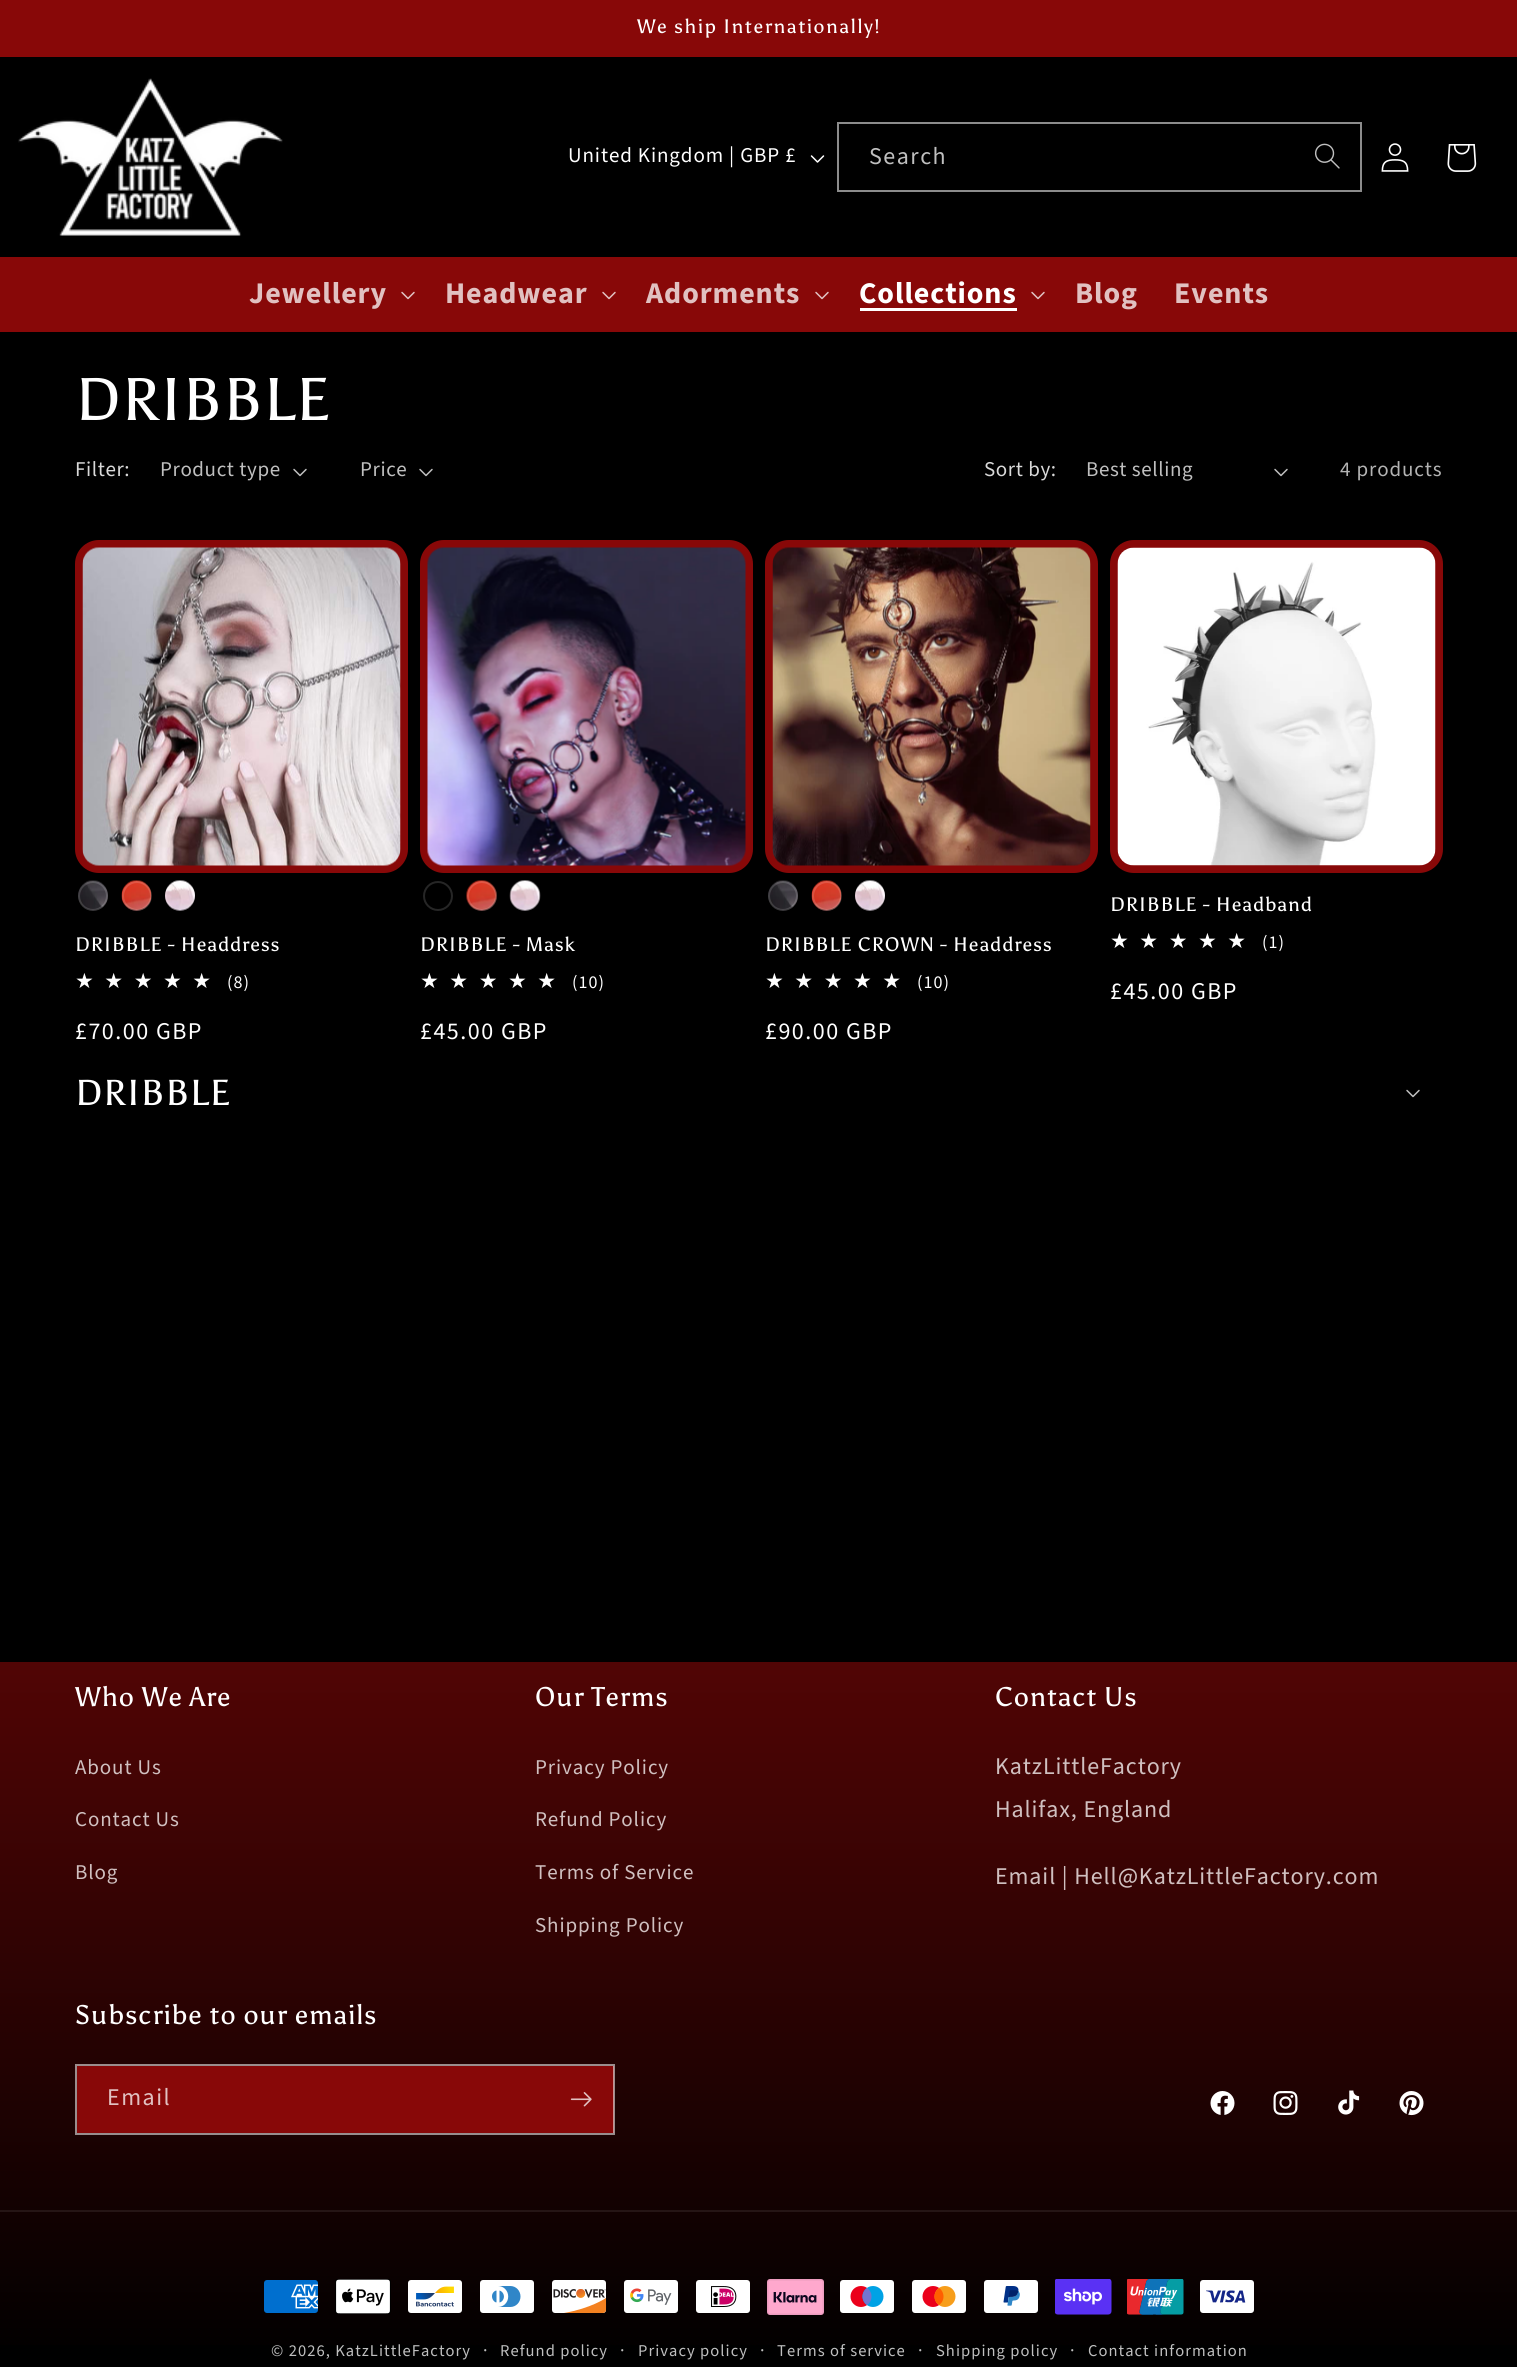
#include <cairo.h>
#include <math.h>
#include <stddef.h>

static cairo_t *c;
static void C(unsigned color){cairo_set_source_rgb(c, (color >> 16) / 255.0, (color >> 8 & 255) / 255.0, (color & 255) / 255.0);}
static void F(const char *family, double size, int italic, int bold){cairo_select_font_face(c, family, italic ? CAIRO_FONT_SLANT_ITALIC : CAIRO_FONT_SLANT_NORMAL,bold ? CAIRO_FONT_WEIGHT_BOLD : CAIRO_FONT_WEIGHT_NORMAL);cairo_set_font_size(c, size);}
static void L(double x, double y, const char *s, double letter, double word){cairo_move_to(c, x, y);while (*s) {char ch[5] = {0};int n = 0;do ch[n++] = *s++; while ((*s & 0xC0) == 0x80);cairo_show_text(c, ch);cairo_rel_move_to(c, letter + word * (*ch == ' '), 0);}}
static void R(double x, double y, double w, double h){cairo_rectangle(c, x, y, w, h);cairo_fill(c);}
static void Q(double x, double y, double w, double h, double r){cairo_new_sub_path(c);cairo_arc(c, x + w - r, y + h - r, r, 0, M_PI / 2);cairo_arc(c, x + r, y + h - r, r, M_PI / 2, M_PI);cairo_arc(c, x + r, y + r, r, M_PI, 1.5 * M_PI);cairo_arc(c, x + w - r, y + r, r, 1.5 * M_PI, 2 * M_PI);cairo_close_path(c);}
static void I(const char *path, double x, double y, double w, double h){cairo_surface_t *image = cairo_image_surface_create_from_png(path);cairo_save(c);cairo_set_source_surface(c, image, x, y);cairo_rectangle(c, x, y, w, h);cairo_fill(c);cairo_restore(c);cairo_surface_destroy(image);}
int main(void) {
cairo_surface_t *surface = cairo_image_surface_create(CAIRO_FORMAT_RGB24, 1517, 2367);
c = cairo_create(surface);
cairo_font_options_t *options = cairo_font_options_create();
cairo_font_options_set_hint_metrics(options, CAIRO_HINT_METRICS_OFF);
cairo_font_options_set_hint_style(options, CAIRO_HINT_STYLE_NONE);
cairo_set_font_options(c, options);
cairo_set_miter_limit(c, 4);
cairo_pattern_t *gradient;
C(0x000000);
cairo_paint(c);
C(0x880808);
R(0,0,1517,57);
F("Asul",19.5,0,0);
C(0xffffff);
L(637,33,"We ship Internationally!",1.5,0);
I("1.png",18,78,265,158);
F("Source Sans Pro",21,0,0);
L(568,162,"United Kingdom | GBP £",.9,0);
I("2.png",810,155,15,8);
I("3.png",1314,143,26,26);
cairo_rectangle(c,838,123,523,68);
C(0x8c8c8c);
cairo_stroke(c);
F("Source Sans Pro",24,0,0);
C(0xbfbfbf);
L(869,164,"Search",1.5,0);
I("4.png",1381,143,28,29);
I("5.png",1447,144,30,28);
C(0x880808);
R(0,257,1517,75);
F("Source Sans Pro",30,0,1);
C(0xe1c1c1);
L(249,303,"Jewellery",.9,0);
I("6.png",401,291,14,9);
L(445,303,"Headwear",.9,0);
I("6.png",602,291,14,9);
L(646,303,"Adorments",.9,0);
I("6.png",815,291,14,9);
C(0xffffff);
L(859,303,"Collections",.9,0);
R(860,308,157,3);
I("6.png",1031,291,14,9);
C(0xe1c1c1);
L(1075,303,"Blog",.9,0);
L(1174,303,"Events",.9,0);
F("Asul",60,0,0);
C(0xffffff);
L(75,420,"DRIBBLE",.9,0);
F("Source Sans Pro",21,0,0);
C(0xd9d9d9);
L(75,476,"Filter:",.6,0);
C(0xbfbfbf);
L(160,476,"Product type",.6,0);
I("7.png",293,468,14,9);
L(360,476,"Price",.6,0);
I("7.png",419,468,14,9);
C(0xd9d9d9);
L(984,476,"Sort by:",.6,0);
C(0xbfbfbf);
L(1086,476,"Best selling",.6,0);
I("7.png",1274,468,14,9);
C(0xb3b3b3);
L(1340,476,"4 products",.9,0);
C(0x880808);
Q(75,540,333,333,24);
cairo_fill(c);
I("8.png",82,547,319,319);
I("9.png",78,880,30,31);
cairo_arc(c,93,896,14,0,2 * M_PI);
cairo_set_source_rgba(c,1,1,1,0.15);
cairo_stroke(c);
I("10.png",121,880,31,31);
cairo_arc(c,137,896,14,0,2 * M_PI);
cairo_stroke(c);
I("11.png",165,880,30,31);
cairo_arc(c,180,896,14,0,2 * M_PI);
cairo_stroke(c);
F("Asul",19.5,0,0);
C(0xffffff);
L(75,951,"DRIBBLE - Headdress",.9,0);
F("DejaVu Sans",21,0,0);
gradient = cairo_pattern_create_linear(75,982,222,982);
cairo_pattern_add_color_stop_rgba(gradient,1,1,1,1,1);
cairo_pattern_add_color_stop_rgba(gradient,1,0.149,0.149,0.149,1);
cairo_set_source(c,gradient);
cairo_pattern_destroy(gradient);
L(75,988,"★★★★★",10.5,0);
F("Source Sans Pro",18,0,0);
C(0xffffff);
L(227,988,"(8)",1.05,0);
F("Source Sans Pro",24,0,0);
L(75,1039,"£70.00 GBP",1.5,0);
C(0x880808);
Q(420,540,333,333,24);
cairo_fill(c);
I("12.png",427,547,319,319);
cairo_arc(c,438,896,14,0,2 * M_PI);
C(0x262626);
cairo_stroke(c);
I("13.png",466,880,31,31);
cairo_arc(c,482,896,14,0,2 * M_PI);
cairo_set_source_rgba(c,1,1,1,0.15);
cairo_stroke(c);
I("14.png",509,880,32,31);
cairo_arc(c,525,896,14,0,2 * M_PI);
cairo_stroke(c);
F("Asul",19.5,0,0);
C(0xffffff);
L(420,951,"DRIBBLE - Mask",.9,0);
F("DejaVu Sans",21,0,0);
gradient = cairo_pattern_create_linear(420,982,567,982);
cairo_pattern_add_color_stop_rgba(gradient,1,1,1,1,1);
cairo_pattern_add_color_stop_rgba(gradient,1,0.149,0.149,0.149,1);
cairo_set_source(c,gradient);
cairo_pattern_destroy(gradient);
L(420,988,"★★★★★",10.5,0);
F("Source Sans Pro",18,0,0);
C(0xffffff);
L(572,988,"(10)",1.05,0);
F("Source Sans Pro",24,0,0);
L(420,1039,"£45.00 GBP",1.5,0);
C(0x880808);
Q(765,540,333,333,24);
cairo_fill(c);
I("15.png",772,547,319,319);
I("9.png",768,880,30,31);
cairo_arc(c,783,896,14,0,2 * M_PI);
cairo_set_source_rgba(c,1,1,1,0.15);
cairo_stroke(c);
I("10.png",811,880,31,31);
cairo_arc(c,827,896,14,0,2 * M_PI);
cairo_stroke(c);
I("11.png",855,880,30,31);
cairo_arc(c,870,896,14,0,2 * M_PI);
cairo_stroke(c);
F("Asul",19.5,0,0);
C(0xffffff);
L(765,951,"DRIBBLE CROWN - Headdress",.9,0);
F("DejaVu Sans",21,0,0);
gradient = cairo_pattern_create_linear(765,982,912,982);
cairo_pattern_add_color_stop_rgba(gradient,1,1,1,1,1);
cairo_pattern_add_color_stop_rgba(gradient,1,0.149,0.149,0.149,1);
cairo_set_source(c,gradient);
cairo_pattern_destroy(gradient);
L(765,988,"★★★★★",10.5,0);
F("Source Sans Pro",18,0,0);
C(0xffffff);
L(917,988,"(10)",1.05,0);
F("Source Sans Pro",24,0,0);
L(765,1039,"£90.00 GBP",1.5,0);
C(0x880808);
Q(1110,540,333,333,24);
cairo_fill(c);
I("16.png",1117,547,319,319);
F("Asul",19.5,0,0);
C(0xffffff);
L(1110,911,"DRIBBLE - Headband",.9,0);
F("DejaVu Sans",21,0,0);
gradient = cairo_pattern_create_linear(1110,941,1257,941);
cairo_pattern_add_color_stop_rgba(gradient,1,1,1,1,1);
cairo_pattern_add_color_stop_rgba(gradient,1,0.149,0.149,0.149,1);
cairo_set_source(c,gradient);
cairo_pattern_destroy(gradient);
L(1110,948,"★★★★★",10.5,0);
F("Source Sans Pro",18,0,0);
C(0xffffff);
L(1262,948,"(1)",1.05,0);
F("Source Sans Pro",24,0,0);
L(1110,999,"£45.00 GBP",1.5,0);
F("Asul",36,0,0);
L(75,1105,"DRIBBLE",.9,0);
I("7.png",1406,1089,14,9);
gradient = cairo_pattern_create_linear(759,2367,759,0);
cairo_pattern_add_color_stop_rgba(gradient,0,0,0,0,1);
cairo_pattern_add_color_stop_rgba(gradient,.5,0.533,0.031,0.031,1);
cairo_pattern_add_color_stop_rgba(gradient,1,0,0,0,1);
cairo_set_source(c,gradient);
cairo_pattern_destroy(gradient);
R(0,1662,1517,683);
F("Asul",27,0,0);
C(0xffffff);
L(75,1706,"Who We Are",.9,0);
F("Source Sans Pro",21,0,0);
C(0xd0c0c0);
L(75,1774,"About Us",.9,0);
L(75,1826,"Contact Us",.9,0);
L(75,1879,"Blog",.9,0);
F("Asul",27,0,0);
C(0xffffff);
L(535,1706,"Our Terms",.9,0);
F("Source Sans Pro",21,0,0);
C(0xd0c0c0);
L(535,1774,"Privacy Policy",.9,0);
L(535,1826,"Refund Policy",.9,0);
L(535,1879,"Terms of Service",.9,0);
L(535,1932,"Shipping Policy",.9,0);
F("Asul",27,0,0);
C(0xffffff);
L(995,1706,"Contact Us",.9,0);
F("Source Sans Pro",24,0,0);
C(0xd0c0c0);
L(995,1774,"KatzLittleFactory",.9,0);
L(995,1817,"Halifax, England",.9,0);
L(995,1884,"Email | Hell@KatzLittleFactory.com",.9,0);
F("Asul",27,0,0);
C(0xffffff);
L(75,2024,"Subscribe to our emails",.9,0);
C(0x880808);
R(77,2066,537,67);
cairo_rectangle(c,76,2065,538,69);
cairo_set_source_rgba(c,1,1,1,0.55);
cairo_stroke(c);
F("Source Sans Pro",24,0,0);
C(0xe1c1c1);
L(107,2105,"Email",1.5,0);
I("17.png",570,2092,22,15);
I("18.png",1210,2091,25,24);
I("19.png",1273,2091,25,24);
I("20.png",1338,2090,22,25);
I("21.png",1399,2091,25,25);
C(0x251515);
R(0,2210,1517,2);
I("22.png",264,2280,54,33);
I("23.png",335,2279,56,35);
I("24.png",408,2280,54,33);
I("25.png",480,2280,54,33);
I("26.png",552,2280,55,33);
I("27.png",624,2280,54,33);
I("28.png",696,2280,54,33);
I("29.png",767,2279,57,36);
I("30.png",840,2280,54,33);
I("31.png",912,2280,54,33);
I("32.png",984,2280,54,33);
I("33.png",1055,2279,57,36);
I("34.png",1127,2279,57,36);
I("35.png",1200,2280,54,33);
F("Source Sans Pro",16.5,0,0);
C(0xbfbfbf);
L(271,2356,"© 2026, KatzLittleFactory",1.05,0);
F("Source Sans Pro",18,0,0);
L(483,2356,"·",1.05,0);
F("Source Sans Pro",16.5,0,0);
L(500,2356,"Refund policy",1.05,0);
F("Source Sans Pro",18,0,0);
L(620,2356,"·",1.05,0);
F("Source Sans Pro",16.5,0,0);
L(638,2356,"Privacy policy",1.05,0);
F("Source Sans Pro",18,0,0);
L(760,2356,"·",1.05,0);
F("Source Sans Pro",16.5,0,0);
L(777,2356,"Terms of service",1.05,0);
F("Source Sans Pro",18,0,0);
L(918,2356,"·",1.05,0);
F("Source Sans Pro",16.5,0,0);
L(936,2356,"Shipping policy",1.05,0);
F("Source Sans Pro",18,0,0);
L(1070,2356,"·",1.05,0);
F("Source Sans Pro",16.5,0,0);
L(1088,2356,"Contact information",1.05,0);
cairo_surface_write_to_png(surface, "o.png");
cairo_font_options_destroy(options);
cairo_destroy(c);
cairo_surface_destroy(surface);
return 0;
}
